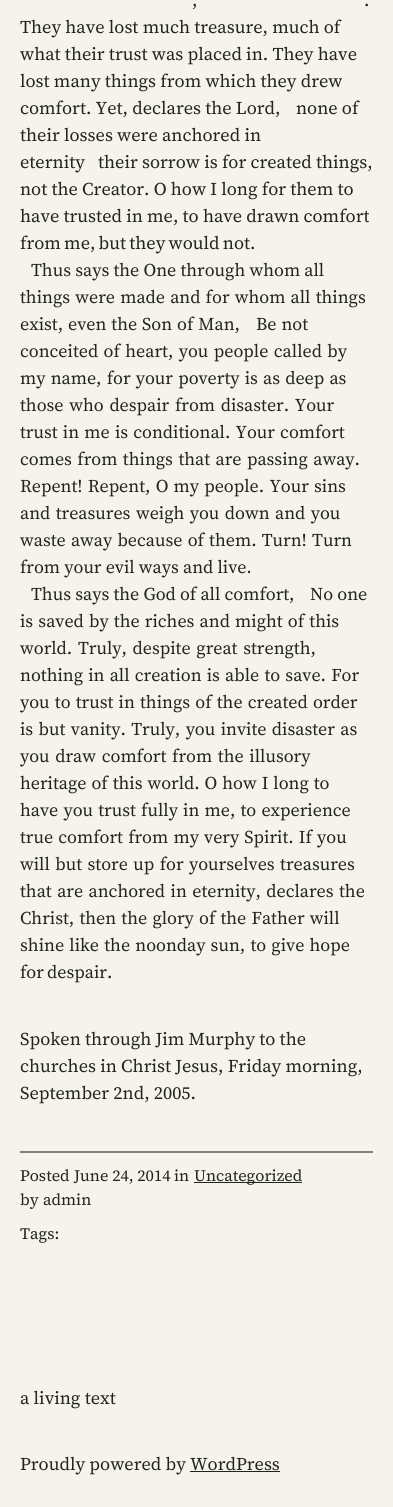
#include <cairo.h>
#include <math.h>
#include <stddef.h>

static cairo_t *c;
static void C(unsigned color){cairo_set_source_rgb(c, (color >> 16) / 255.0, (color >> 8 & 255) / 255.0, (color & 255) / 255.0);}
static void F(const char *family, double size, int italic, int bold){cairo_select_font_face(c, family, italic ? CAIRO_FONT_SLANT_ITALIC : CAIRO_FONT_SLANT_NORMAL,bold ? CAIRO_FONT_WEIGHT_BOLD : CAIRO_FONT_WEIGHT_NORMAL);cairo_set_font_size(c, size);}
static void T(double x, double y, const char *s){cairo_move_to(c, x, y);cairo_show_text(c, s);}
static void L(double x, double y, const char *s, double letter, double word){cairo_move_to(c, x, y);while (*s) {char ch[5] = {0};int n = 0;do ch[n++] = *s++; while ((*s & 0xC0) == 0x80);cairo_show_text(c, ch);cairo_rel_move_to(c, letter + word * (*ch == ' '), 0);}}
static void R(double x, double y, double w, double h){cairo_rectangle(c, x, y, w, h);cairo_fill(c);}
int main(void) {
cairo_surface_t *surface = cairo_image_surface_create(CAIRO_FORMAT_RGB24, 393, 1507);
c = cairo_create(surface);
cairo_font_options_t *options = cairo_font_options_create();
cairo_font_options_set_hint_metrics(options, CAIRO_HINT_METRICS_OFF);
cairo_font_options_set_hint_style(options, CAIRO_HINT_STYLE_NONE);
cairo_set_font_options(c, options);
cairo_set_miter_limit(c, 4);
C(0xf6f2ec);
cairo_paint(c);
F("Source Serif 4",18,0,0);
C(0x21251f);
T(192,6,",");
T(364,6,".");
T(20,33,"They have lost much treasure, much of");
T(20,60,"what their trust was placed in. They have");
T(20,87,"lost many things from which they drew");
T(20,114,"comfort. Yet, declares the Lord,");
T(296,114,"none of");
T(20,141,"their losses were anchored in");
T(20,168,"eternity");
T(98,168,"their sorrow is for created things,");
T(20,195,"not the Creator. O how I long for them to");
T(20,222,"have trusted in me, to have drawn comfort");
L(20,249,"from me, but they would not.",0,-1);
F("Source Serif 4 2",18,0,0);
T(31,276,"Thus says the One through whom all");
L(20,303,"things were made and for whom all things",0,1);
L(20,330,"exist, even the Son of Man,",0,.75);
L(256,330,"Be not",0,.75);
L(20,357,"conceited of heart, you people called by",0,1.25);
L(20,384,"my name, for your poverty is as deep as",0,1);
L(20,411,"those who despair from disaster. Your",0,1.5);
L(20,438,"trust in me is conditional. Your comfort",0,1);
L(20,465,"comes from things that are passing away.",0,1.25);
L(20,492,"Repent! Repent, O my people. Your sins",0,1);
L(20,519,"and treasures weigh you down and you",0,1.25);
L(20,546,"waste away because of them. Turn! Turn",0,1);
T(20,573,"from your evil ways and live.");
T(31,600,"Thus says the God of all comfort,");
T(310,600,"No one");
L(20,627,"is saved by the riches and might of this",0,1);
L(20,654,"world. Truly, despite great strength,",0,1.5);
L(20,681,"nothing in all creation is able to save. For",0,1);
L(20,708,"you to trust in things of the created order",0,1);
L(20,735,"is but vanity. Truly, you invite disaster as",0,1.25);
L(20,762,"you draw comfort from the illusory",0,1.5);
L(20,789,"heritage of this world. O how I long to",0,.75);
L(20,816,"have you trust fully in me, to experience",0,1);
L(20,843,"true comfort from my very Spirit. If you",0,1);
L(20,870,"will but store up for yourselves treasures",0,1.25);
L(20,897,"that are anchored in eternity, declares the",0,1.25);
L(20,924,"Christ, then the glory of the Father will",0,1);
L(20,951,"shine like the noonday sun, to give hope",0,1);
L(20,978,"for despair.",0,-1);
F("Source Serif 4",18,0,0);
T(20,1045,"Spoken through Jim Murphy to the");
T(20,1072,"churches in Christ Jesus, Friday morning,");
T(20,1099,"September 2nd, 2005.");
C(0x808080);
R(20,1151,353,2);
F("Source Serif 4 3",16,0,0);
C(0x21251f);
T(20,1181,"Posted");
T(74,1181,"June 24, 2014");
T(174,1181,"in");
R(194,1182,108,1);
T(194,1181,"Uncategorized");
T(20,1205,"by");
T(43,1205,"admin");
T(20,1239,"Tags:");
F("Source Serif 4",18,0,0);
T(20,1404,"a living text");
T(20,1470,"Proudly powered by WordPress");
R(190,1471,90,1);
cairo_surface_write_to_png(surface, "o.png");
cairo_font_options_destroy(options);
cairo_destroy(c);
cairo_surface_destroy(surface);
return 0;
}
